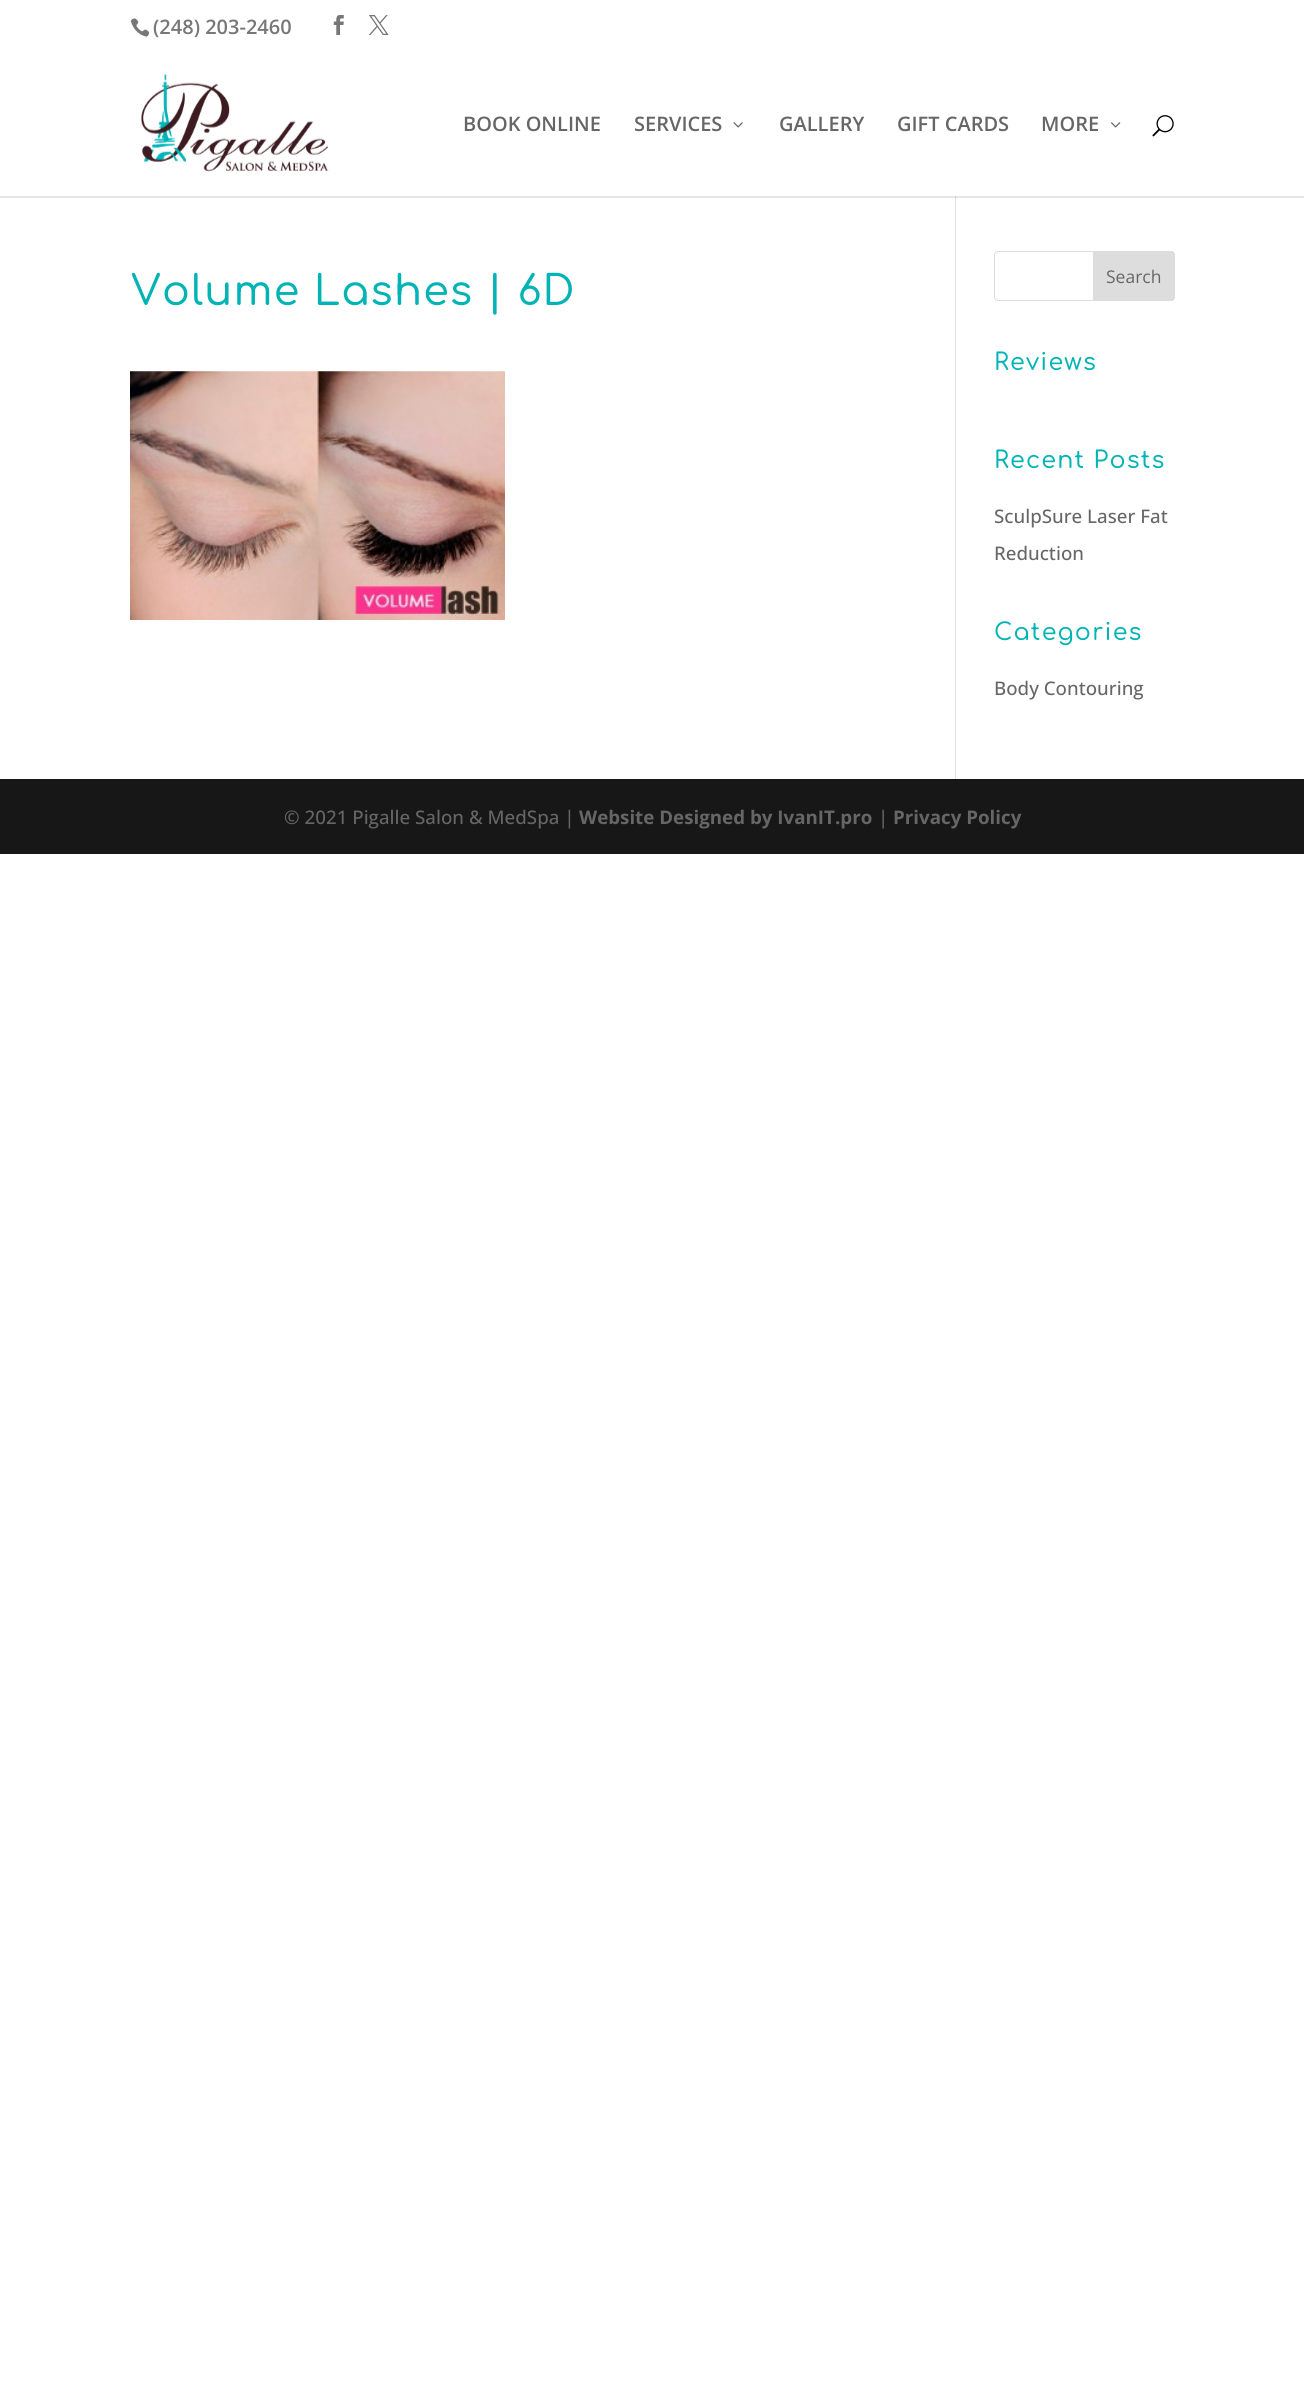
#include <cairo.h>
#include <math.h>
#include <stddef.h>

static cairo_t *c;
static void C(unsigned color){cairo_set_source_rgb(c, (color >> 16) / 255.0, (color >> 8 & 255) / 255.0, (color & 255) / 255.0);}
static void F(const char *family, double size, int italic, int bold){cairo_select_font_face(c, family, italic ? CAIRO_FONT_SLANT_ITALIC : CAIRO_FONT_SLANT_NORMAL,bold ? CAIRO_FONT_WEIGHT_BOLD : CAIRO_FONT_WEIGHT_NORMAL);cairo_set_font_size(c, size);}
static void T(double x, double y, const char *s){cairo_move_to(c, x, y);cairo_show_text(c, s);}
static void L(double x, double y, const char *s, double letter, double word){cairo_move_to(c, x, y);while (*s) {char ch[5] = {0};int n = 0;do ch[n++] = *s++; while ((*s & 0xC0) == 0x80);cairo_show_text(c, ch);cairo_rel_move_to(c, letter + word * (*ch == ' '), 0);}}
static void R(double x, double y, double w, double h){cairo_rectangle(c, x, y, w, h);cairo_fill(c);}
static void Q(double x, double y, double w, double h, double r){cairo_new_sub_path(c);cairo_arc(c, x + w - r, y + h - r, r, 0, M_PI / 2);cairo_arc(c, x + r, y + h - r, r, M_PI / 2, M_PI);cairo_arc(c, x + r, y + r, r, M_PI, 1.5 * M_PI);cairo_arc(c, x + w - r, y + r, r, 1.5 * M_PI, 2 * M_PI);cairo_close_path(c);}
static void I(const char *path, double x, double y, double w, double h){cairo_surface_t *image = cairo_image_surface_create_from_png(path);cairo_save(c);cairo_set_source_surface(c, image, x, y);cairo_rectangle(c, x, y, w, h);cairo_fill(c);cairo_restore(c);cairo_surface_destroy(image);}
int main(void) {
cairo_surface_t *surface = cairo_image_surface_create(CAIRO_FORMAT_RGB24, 1304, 2384);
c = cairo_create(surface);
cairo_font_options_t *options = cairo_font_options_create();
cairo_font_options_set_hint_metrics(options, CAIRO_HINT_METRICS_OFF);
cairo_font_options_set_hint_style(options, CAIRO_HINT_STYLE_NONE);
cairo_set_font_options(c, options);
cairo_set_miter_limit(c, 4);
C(0xffffff);
cairo_paint(c);
C(0xe6e6e6);
R(0,196,1304,2);
I("1.png",130,18,20,19);
F("Open Sans SemiBold",20,0,0);
C(0x777777);
T(153,34,"(248) 203-2460");
I("2.png",333,15,11,20);
I("3.png",369,15,20,20);
I("4.png",141,73,188,99);
C(0x666666);
T(463,131,"BOOK ONLINE");
T(634,131,"SERVICES");
I("5.png",733,122,10,6);
T(779,131,"GALLERY");
T(897,131,"GIFT CARDS");
T(1041,131,"MORE");
I("6.png",1111,122,10,6);
I("7.png",1152,115,22,22);
C(0xe2e2e2);
R(955,198,1,581);
C(0xcbcbcb);
R(955,196,1,2);
F("Comfortaa Medium",41.25,0,0);
C(0x00b3b5);
L(131,305,"Volume Lashes | 6D",1.25,0);
I("8.png",130,371,375,249);
Q(994.5,251.5,180,49,3.5);
C(0xdddddd);
cairo_set_line_width(c,1);
cairo_stroke(c);
cairo_new_path(c);
cairo_move_to(c,1093.5,251.5);
cairo_line_to(c,1171,251.5);
cairo_curve_to(c,1173,251.5,1174.5,253,1174.5,255);
cairo_line_to(c,1174.5,297);
cairo_curve_to(c,1174.5,299,1173,300.5,1171,300.5);
cairo_line_to(c,1093.5,300.5);
cairo_close_path(c);
cairo_fill_preserve(c);
cairo_stroke(c);
F("Open Sans",17.5,0,0);
C(0x666666);
T(1106,283,"Search");
F("Comfortaa Medium",23.75,0,0);
C(0x00b3b5);
L(994,370,"Reviews",1.25,0);
L(994,468,"Recent Posts",1.25,0);
F("Open Sans Medium",18.75,0,0);
C(0x666666);
T(994,523,"SculpSure Laser Fat");
T(994,560,"Reduction");
F("Comfortaa Medium",23.75,0,0);
C(0x00b3b5);
L(994,640,"Categories",1.25,0);
F("Open Sans Medium",18.75,0,0);
C(0x666666);
T(994,695,"Body Contouring");
C(0x171717);
R(0,779,1304,75);
C(0x666666);
T(284,824,"© 2021 Pigalle Salon & MedSpa |");
F("Open Sans",18.75,0,1);
T(579,824,"Website Designed by IvanIT.pro");
F("Open Sans Medium",18.75,0,0);
T(878,824,"|");
F("Open Sans",18.75,0,1);
T(893,824,"Privacy Policy");
cairo_surface_write_to_png(surface, "o.png");
cairo_font_options_destroy(options);
cairo_destroy(c);
cairo_surface_destroy(surface);
return 0;
}
